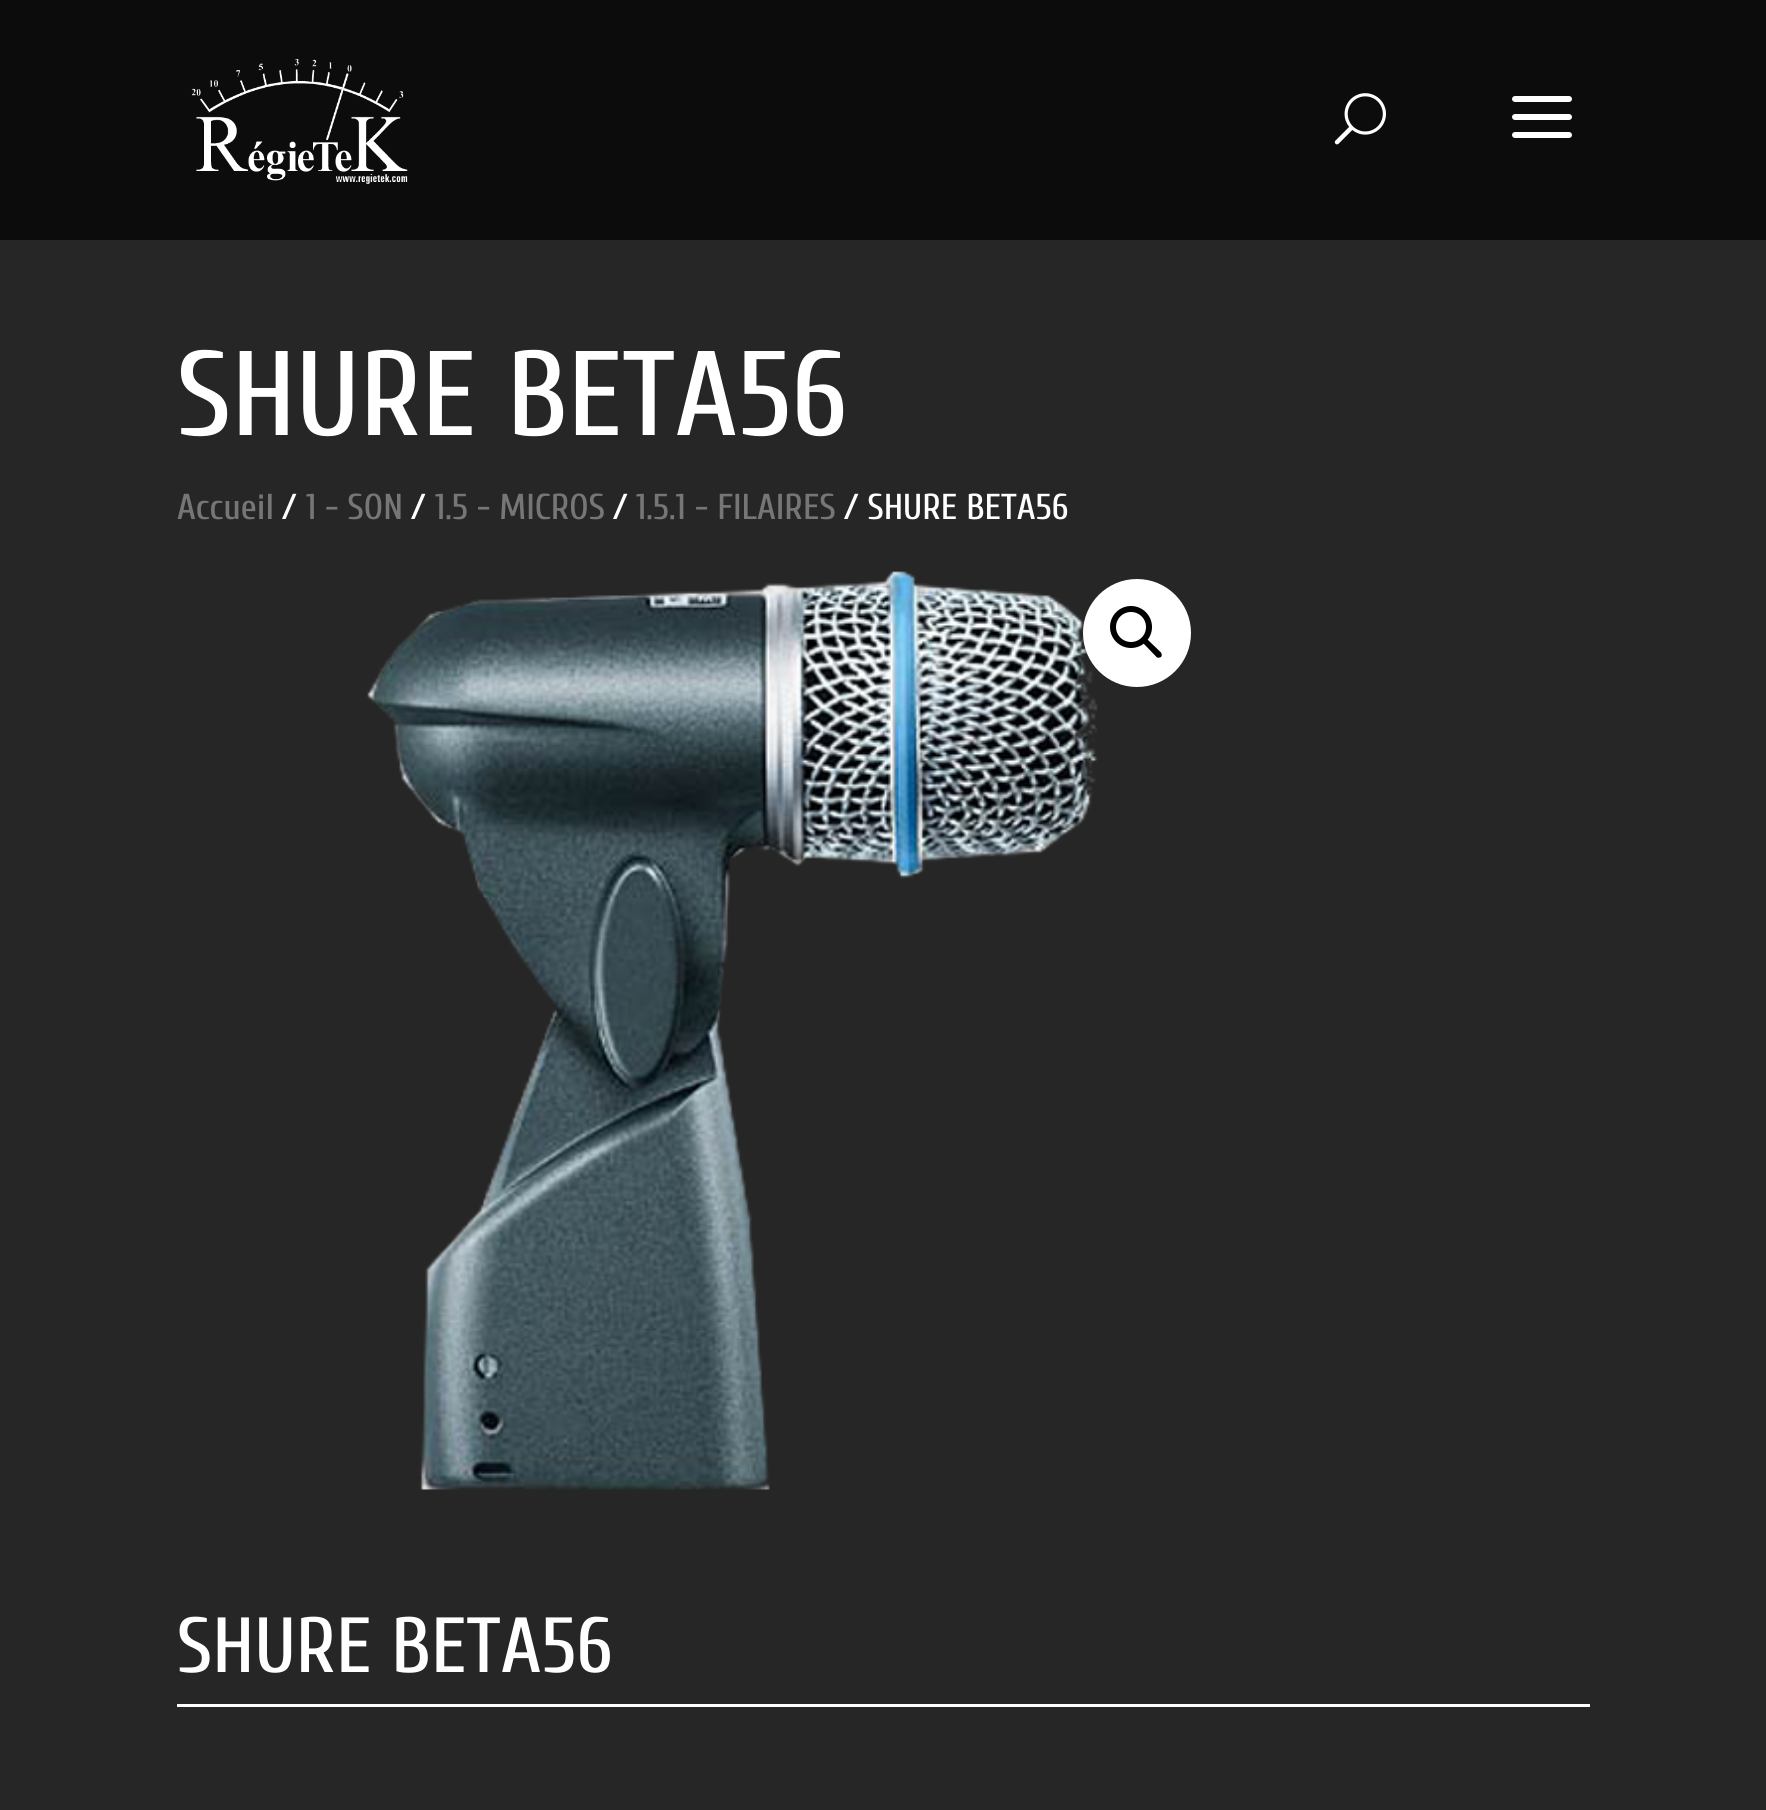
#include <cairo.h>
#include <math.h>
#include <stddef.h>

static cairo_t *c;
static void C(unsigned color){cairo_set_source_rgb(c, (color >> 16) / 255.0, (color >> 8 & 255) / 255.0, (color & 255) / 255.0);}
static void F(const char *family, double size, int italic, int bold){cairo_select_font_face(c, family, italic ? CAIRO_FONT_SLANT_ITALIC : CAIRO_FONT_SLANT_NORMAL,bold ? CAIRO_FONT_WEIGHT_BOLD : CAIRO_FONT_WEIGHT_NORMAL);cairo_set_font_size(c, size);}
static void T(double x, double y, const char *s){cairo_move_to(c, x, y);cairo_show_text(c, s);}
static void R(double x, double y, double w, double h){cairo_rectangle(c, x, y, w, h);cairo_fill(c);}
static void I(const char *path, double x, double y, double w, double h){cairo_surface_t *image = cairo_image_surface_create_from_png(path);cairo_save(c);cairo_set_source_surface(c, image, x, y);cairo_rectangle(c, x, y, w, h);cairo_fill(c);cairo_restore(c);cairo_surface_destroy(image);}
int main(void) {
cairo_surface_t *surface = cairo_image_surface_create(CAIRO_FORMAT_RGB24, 1766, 1810);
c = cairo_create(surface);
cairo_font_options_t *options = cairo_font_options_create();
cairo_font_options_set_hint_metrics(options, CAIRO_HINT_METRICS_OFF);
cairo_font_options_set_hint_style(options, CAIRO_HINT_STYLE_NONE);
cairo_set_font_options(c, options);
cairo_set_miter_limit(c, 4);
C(0x262626);
cairo_paint(c);
C(0x0c0c0c);
R(0,0,1766,240);
I("1.png",191,59,217,125);
I("2.png",1334,93,52,52);
I("3.png",1512,96,60,42);
F("Cuprum Medium",120,0,0);
C(0xffffff);
T(177,435,"SHURE BETA56");
F("Cuprum Medium",36,0,0);
C(0x767676);
T(177,519,"Accueil");
C(0xffffff);
T(282,519,"/");
C(0x767676);
T(306,519,"1 - SON");
C(0xffffff);
T(411,519,"/");
C(0x767676);
T(435,519,"1.5 - MICROS");
C(0xffffff);
T(613,519,"/");
C(0x767676);
T(636,519,"1.5.1 - FILAIRES");
C(0xffffff);
T(844,519,"/ SHURE BETA56");
I("4.png",367,571,731,919);
cairo_arc(c,1137,633,54,0,2 * M_PI);
cairo_fill(c);
cairo_arc(c,1131,627,18,0,2 * M_PI);
C(0x000000);
cairo_set_line_width(c,6);
cairo_stroke(c);
cairo_new_path(c);
cairo_move_to(c,1144,640);
cairo_curve_to(c,1145,639,1147,639,1148,640);
cairo_line_to(c,1161,652.5);
cairo_curve_to(c,1162,654,1162,656,1161,657);
cairo_curve_to(c,1159.5,658,1157.5,658,1156.5,657);
cairo_line_to(c,1144,644);
cairo_curve_to(c,1142.5,643,1142.5,641,1144,640);
cairo_close_path(c);
cairo_fill(c);
F("Cuprum Medium",78,0,0);
C(0xffffff);
T(177,1672,"SHURE BETA56");
R(177,1704,1413,3);
cairo_surface_write_to_png(surface, "o.png");
cairo_font_options_destroy(options);
cairo_destroy(c);
cairo_surface_destroy(surface);
return 0;
}
